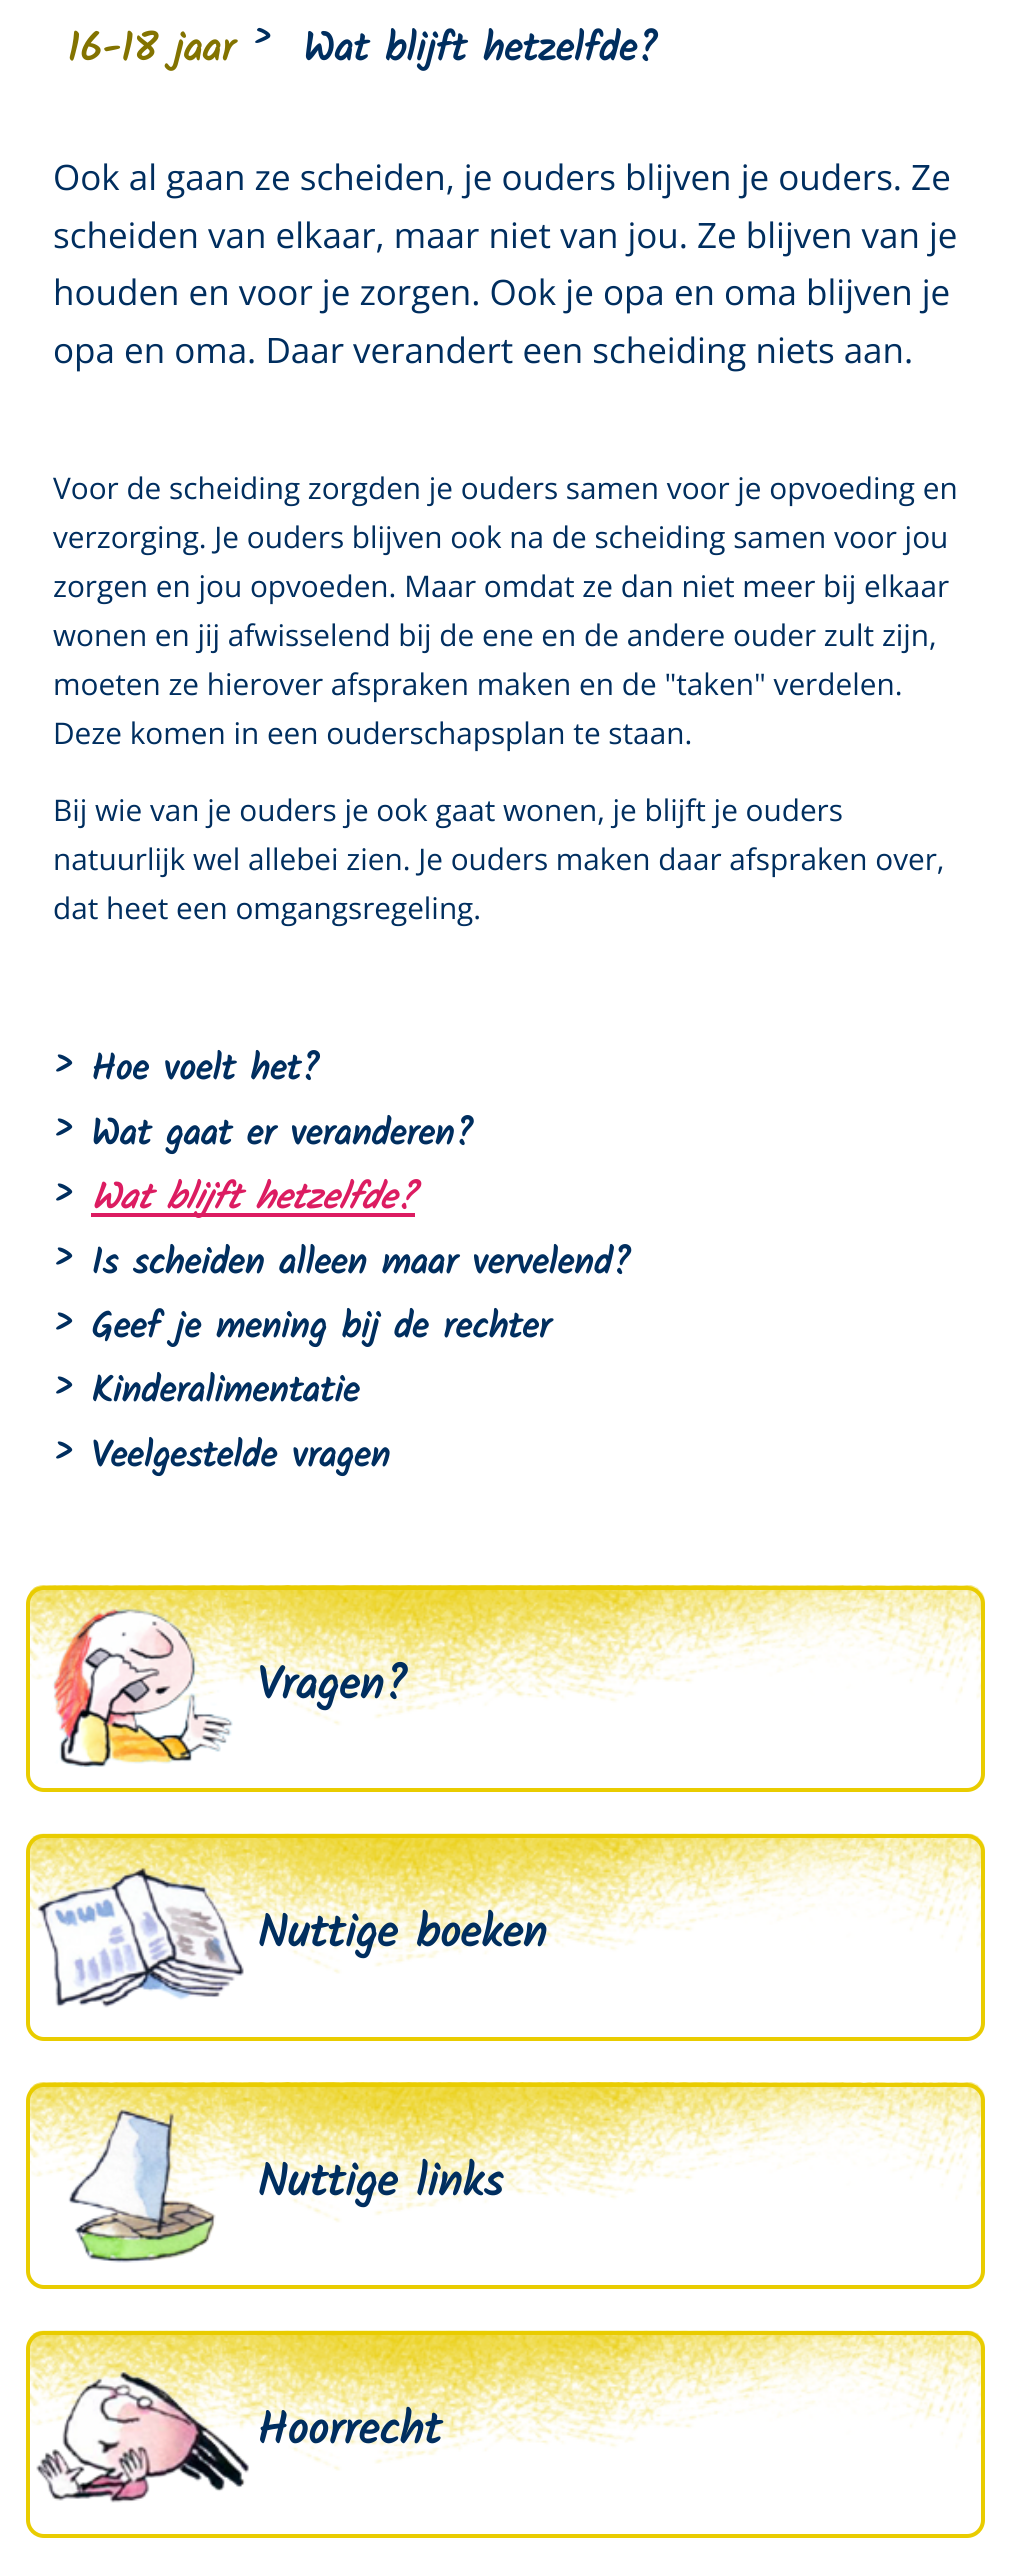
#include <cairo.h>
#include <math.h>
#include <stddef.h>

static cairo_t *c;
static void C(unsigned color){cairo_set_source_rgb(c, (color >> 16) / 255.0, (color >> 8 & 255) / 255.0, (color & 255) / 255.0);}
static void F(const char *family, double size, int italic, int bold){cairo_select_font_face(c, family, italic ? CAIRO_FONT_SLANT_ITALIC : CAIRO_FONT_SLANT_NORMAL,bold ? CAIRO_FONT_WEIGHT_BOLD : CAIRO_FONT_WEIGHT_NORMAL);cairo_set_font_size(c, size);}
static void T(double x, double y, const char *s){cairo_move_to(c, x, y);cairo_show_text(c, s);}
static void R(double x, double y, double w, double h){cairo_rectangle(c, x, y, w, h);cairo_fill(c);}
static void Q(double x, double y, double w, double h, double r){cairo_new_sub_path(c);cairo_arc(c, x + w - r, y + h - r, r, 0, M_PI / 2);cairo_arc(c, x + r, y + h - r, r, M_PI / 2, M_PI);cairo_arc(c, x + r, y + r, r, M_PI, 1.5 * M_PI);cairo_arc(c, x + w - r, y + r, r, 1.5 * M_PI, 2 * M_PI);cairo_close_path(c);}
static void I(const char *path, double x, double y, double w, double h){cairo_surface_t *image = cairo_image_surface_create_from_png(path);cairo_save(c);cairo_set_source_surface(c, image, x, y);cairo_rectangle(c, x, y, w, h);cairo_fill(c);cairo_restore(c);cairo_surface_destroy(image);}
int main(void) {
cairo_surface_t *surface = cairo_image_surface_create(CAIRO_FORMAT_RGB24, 1010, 2551);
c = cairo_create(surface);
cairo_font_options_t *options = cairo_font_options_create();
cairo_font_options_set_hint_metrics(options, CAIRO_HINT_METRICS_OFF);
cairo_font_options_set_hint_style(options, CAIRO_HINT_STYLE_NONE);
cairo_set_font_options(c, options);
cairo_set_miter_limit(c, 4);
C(0xffffff);
cairo_paint(c);
F("Kalam",40.25,0,1);
C(0x837300);
T(67,61,"16-18 jaar");
C(0x002e5f);
T(250,49,"›");
T(303,61,"Wat blijft hetzelfde?");
F("Open Sans",35,0,0);
T(53,190,"Ook al gaan ze scheiden, je ouders blijven je ouders. Ze");
T(53,248,"scheiden van elkaar, maar niet van jou. Ze blijven van je");
T(53,305,"houden en voor je zorgen. Ook je opa en oma blijven je");
T(53,363,"opa en oma. Daar verandert een scheiding niets aan.");
F("Open Sans",29.75,0,0);
T(53,499,"Voor de scheiding zorgden je ouders samen voor je opvoeding en");
T(53,548,"verzorging. Je ouders blijven ook na de scheiding samen voor jou");
T(53,597,"zorgen en jou opvoeden. Maar omdat ze dan niet meer bij elkaar");
T(53,646,"wonen en jij afwisselend bij de ene en de andere ouder zult zijn,");
T(53,695,"moeten ze hierover afspraken maken en de \"taken\" verdelen.");
T(53,744,"Deze komen in een ouderschapsplan te staan.");
T(53,821,"Bij wie van je ouders je ook gaat wonen, je blijft je ouders");
T(53,870,"natuurlijk wel allebei zien. Je ouders maken daar afspraken over,");
T(53,919,"dat heet een omgangsregeling.");
F("Kalam",36,0,1);
T(53,1075,">");
F("Kalam",36.75,0,1);
T(91,1080,"Hoe voelt het?");
F("Kalam",36,0,1);
T(53,1139,">");
F("Kalam",36.75,0,1);
T(91,1145,"Wat gaat er veranderen?");
F("Kalam",36,0,1);
T(53,1204,">");
C(0xdc1c61);
R(91,1213,324,4);
F("Kalam",36.75,1,1);
T(91,1209,"Wat blijft hetzelfde?");
F("Kalam",36,0,1);
C(0x002e5f);
T(53,1268,">");
F("Kalam",36.75,0,1);
T(91,1274,"Is scheiden alleen maar vervelend?");
F("Kalam",36,0,1);
T(53,1333,">");
F("Kalam",36.75,0,1);
T(91,1338,"Geef je mening bij de rechter");
F("Kalam",36,0,1);
T(53,1397,">");
F("Kalam",36.75,0,1);
T(91,1402,"Kinderalimentatie");
F("Kalam",36,0,1);
T(53,1462,">");
F("Kalam",36.75,0,1);
T(91,1467,"Veelgestelde vragen");
I("1.png",29,1585,957,141);
Q(28,1588,955,202,16);
C(0xe9cc00);
cairo_set_line_width(c,4);
cairo_stroke(c);
I("2.png",51,1609,182,158);
F("Kalam",45.5,0,1);
C(0x002e5f);
T(257,1699,"Vragen?");
I("3.png",29,1833,957,141);
Q(28,1836,955,203,16);
C(0xe9cc00);
cairo_stroke(c);
I("4.png",36,1867,208,141);
C(0x002e5f);
T(257,1947,"Nuttige boeken");
I("1.png",29,2082,957,141);
Q(28,2085,955,202,16);
C(0xe9cc00);
cairo_stroke(c);
I("5.png",68,2109,148,154);
C(0x002e5f);
T(257,2196,"Nuttige links");
I("3.png",29,2330,957,141);
Q(28,2333,955,203,16);
C(0xe9cc00);
cairo_stroke(c);
I("6.png",36,2371,214,132);
C(0x002e5f);
T(257,2444,"Hoorrecht");
cairo_surface_write_to_png(surface, "o.png");
cairo_font_options_destroy(options);
cairo_destroy(c);
cairo_surface_destroy(surface);
return 0;
}
